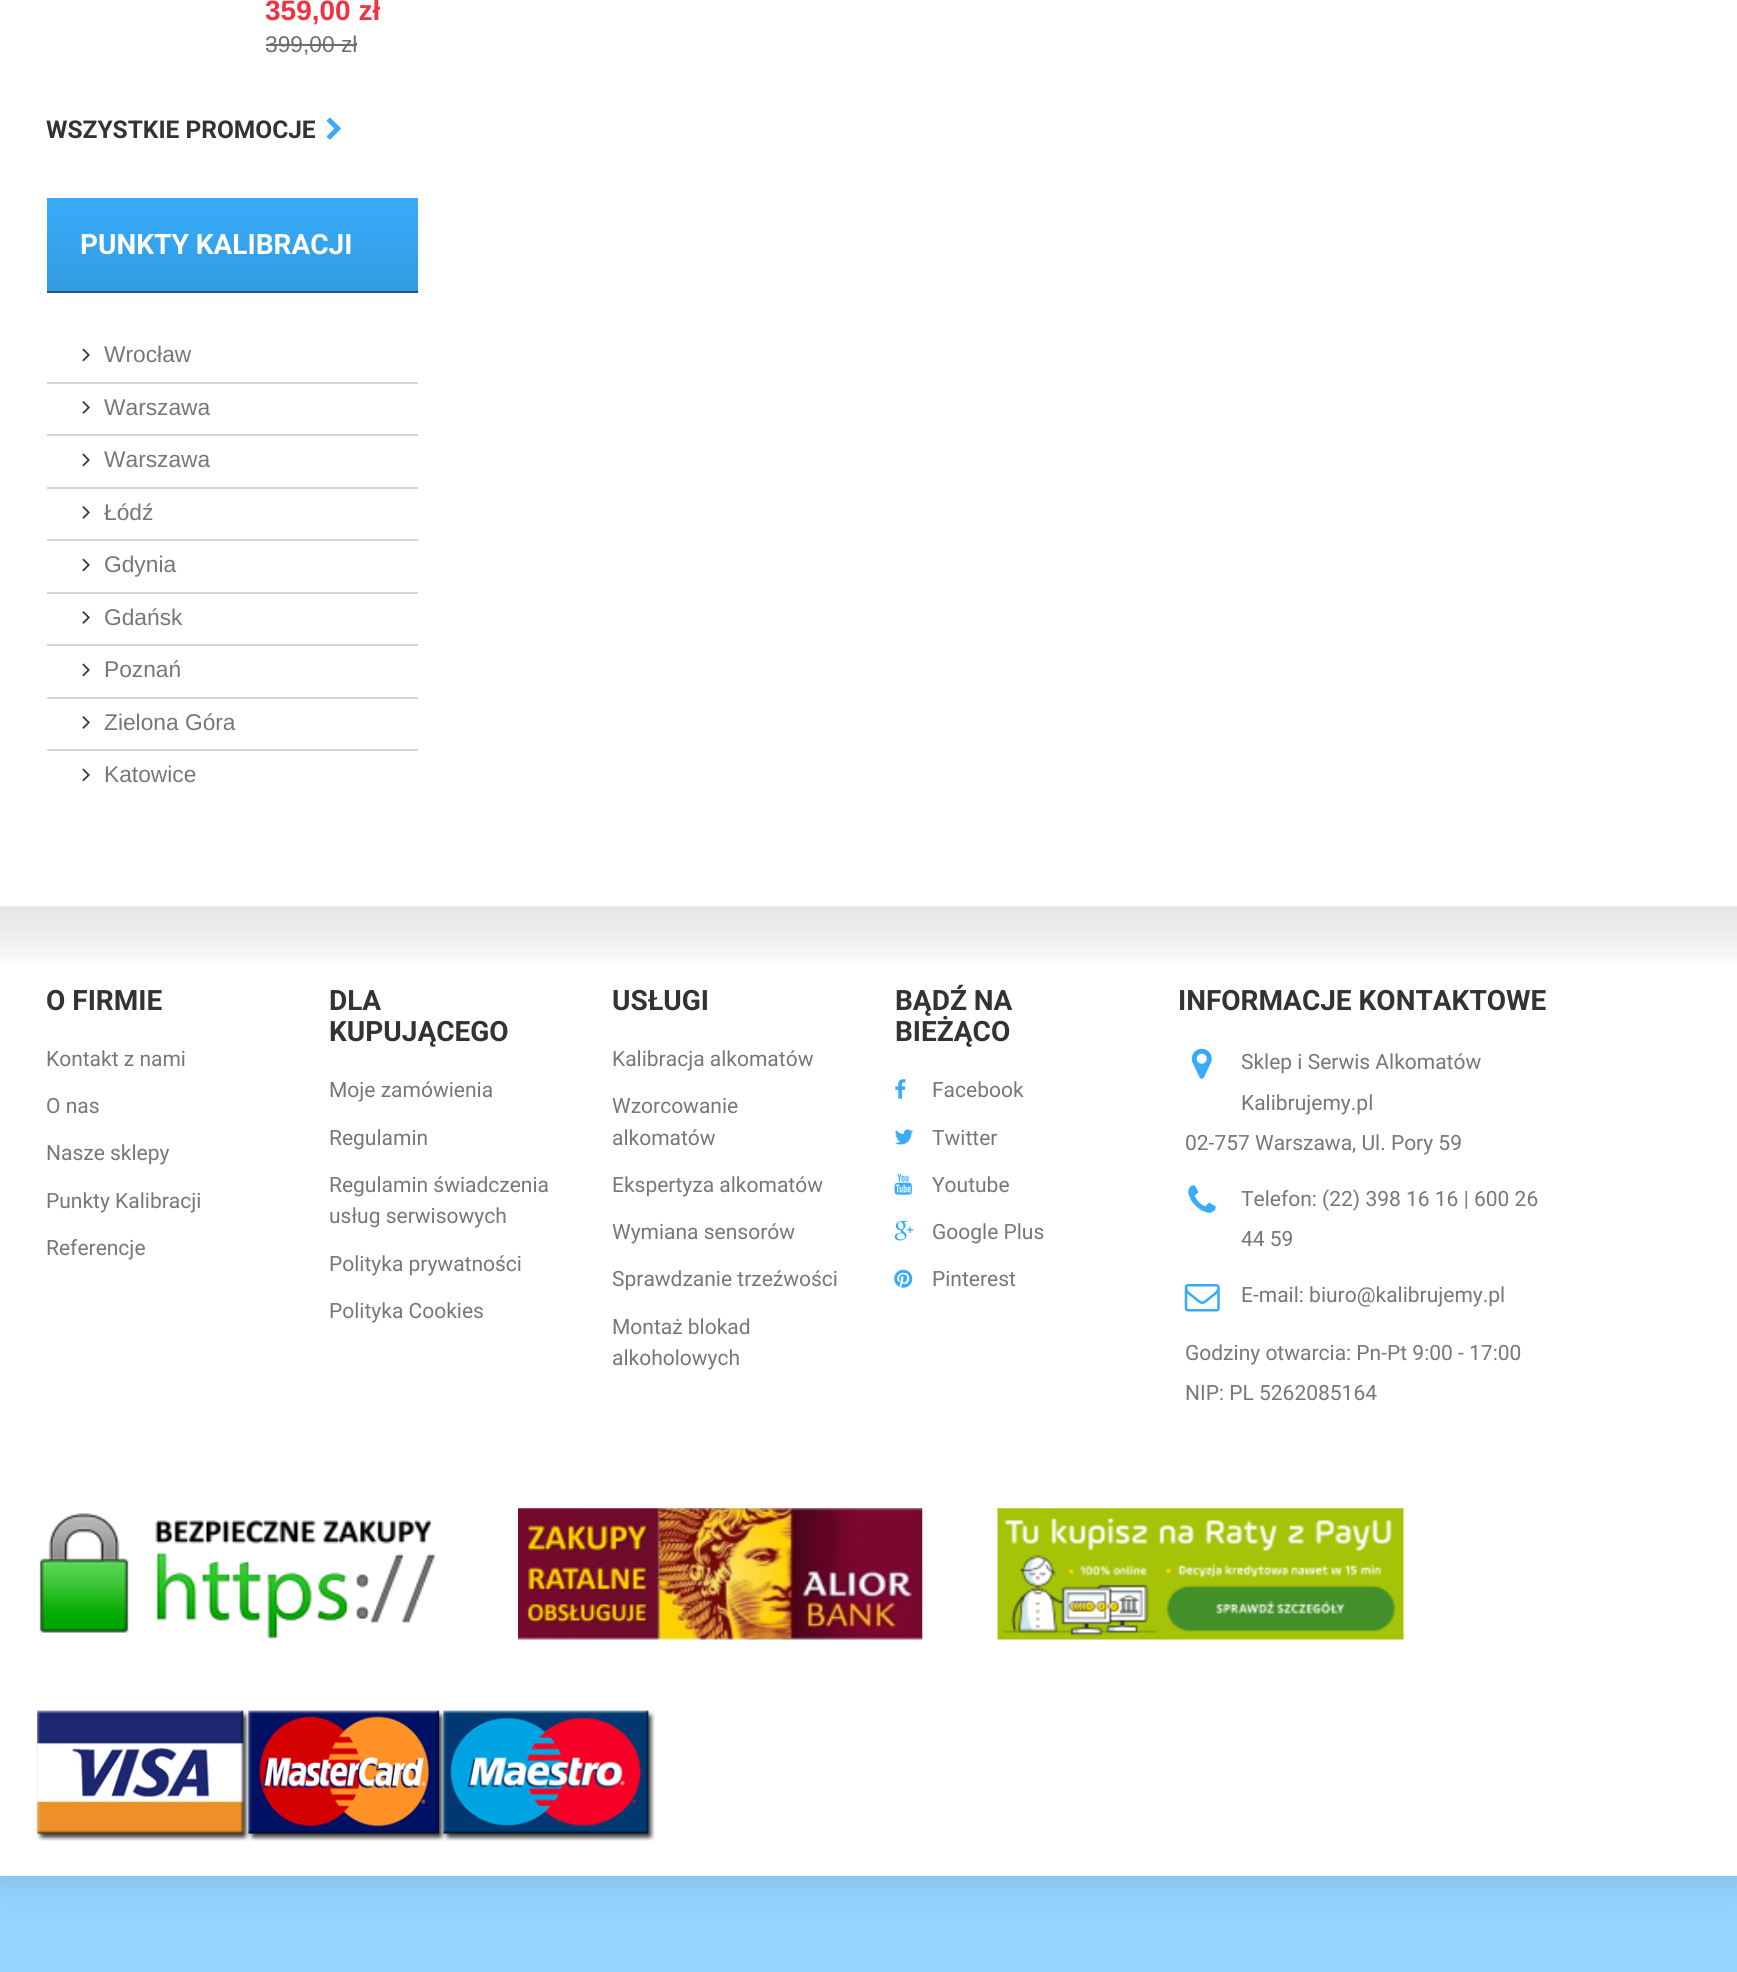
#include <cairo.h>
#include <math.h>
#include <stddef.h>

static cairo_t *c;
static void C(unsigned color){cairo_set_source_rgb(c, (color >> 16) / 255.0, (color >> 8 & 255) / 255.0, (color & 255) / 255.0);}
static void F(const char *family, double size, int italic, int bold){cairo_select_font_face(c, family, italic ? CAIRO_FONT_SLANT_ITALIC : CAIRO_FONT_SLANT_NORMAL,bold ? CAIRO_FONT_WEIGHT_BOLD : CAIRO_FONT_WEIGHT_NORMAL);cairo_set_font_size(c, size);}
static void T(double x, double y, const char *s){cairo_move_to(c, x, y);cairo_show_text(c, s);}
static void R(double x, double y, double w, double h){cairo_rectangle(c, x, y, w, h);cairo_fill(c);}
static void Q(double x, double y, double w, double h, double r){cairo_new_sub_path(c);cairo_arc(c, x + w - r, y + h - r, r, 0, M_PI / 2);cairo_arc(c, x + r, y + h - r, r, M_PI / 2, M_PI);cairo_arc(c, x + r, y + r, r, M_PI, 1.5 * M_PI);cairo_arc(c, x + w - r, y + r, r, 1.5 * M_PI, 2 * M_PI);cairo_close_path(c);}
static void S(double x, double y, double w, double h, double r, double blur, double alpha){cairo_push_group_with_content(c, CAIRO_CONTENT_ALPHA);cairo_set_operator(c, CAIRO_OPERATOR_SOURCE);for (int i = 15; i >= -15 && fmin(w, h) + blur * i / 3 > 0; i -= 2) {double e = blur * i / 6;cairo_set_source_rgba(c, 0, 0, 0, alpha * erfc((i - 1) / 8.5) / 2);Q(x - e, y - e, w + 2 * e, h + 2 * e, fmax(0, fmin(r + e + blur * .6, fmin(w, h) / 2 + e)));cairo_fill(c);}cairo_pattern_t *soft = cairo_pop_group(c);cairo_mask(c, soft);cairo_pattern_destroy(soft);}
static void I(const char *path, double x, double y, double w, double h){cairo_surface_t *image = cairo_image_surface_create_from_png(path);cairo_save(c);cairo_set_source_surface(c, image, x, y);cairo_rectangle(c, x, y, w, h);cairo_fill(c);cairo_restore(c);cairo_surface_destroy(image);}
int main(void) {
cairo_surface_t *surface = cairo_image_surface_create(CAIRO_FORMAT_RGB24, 1737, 1972);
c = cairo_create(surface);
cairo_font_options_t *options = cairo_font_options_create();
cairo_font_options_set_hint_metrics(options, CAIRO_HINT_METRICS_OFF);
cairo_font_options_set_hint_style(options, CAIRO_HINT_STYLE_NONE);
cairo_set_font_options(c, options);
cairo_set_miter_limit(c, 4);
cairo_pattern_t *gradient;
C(0x94d4ff);
cairo_paint(c);
C(0x000000);
S(0,-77,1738,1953,0,25.5,.14);
C(0xffffff);
R(0,0,1737,1876);
F("Liberation Sans",28,0,1);
C(0xf13341);
T(265,20,"359,00 zł");
F("Liberation Sans",22.75,0,0);
C(0x6f6f6f);
T(265,52,"399,00 zł");
R(266,44,91,2);
F("Roboto",24.5,0,1);
C(0x333333);
T(46,138,"WSZYSTKIE PROMOCJE");
I("1.png",326,117,15,23);
gradient = cairo_pattern_create_linear(233,198,233,291);
cairo_pattern_add_color_stop_rgba(gradient,0,0.22,0.675,0.98,1);
cairo_pattern_add_color_stop_rgba(gradient,1,0.196,0.608,0.882,1);
cairo_set_source(c,gradient);
cairo_pattern_destroy(gradient);
R(47,198,371,93);
C(0x1e5a87);
R(47,291,371,2);
F("Roboto",28,0,1);
C(0xffffff);
T(80,254,"PUNKTY KALIBRACJI");
I("2.png",82,348,8,14);
F("Liberation Sans",22.75,0,0);
C(0x777777);
T(104,362,"Wrocław");
C(0xd6d4d4);
R(47,382,371,2);
I("3.png",82,401,8,13);
C(0x777777);
T(104,415,"Warszawa");
C(0xd6d4d4);
R(47,434,371,2);
I("2.png",82,453,8,14);
C(0x777777);
T(104,467,"Warszawa");
C(0xd6d4d4);
R(47,487,371,2);
I("3.png",82,506,8,13);
C(0x777777);
T(104,520,"Łódź");
C(0xd6d4d4);
R(47,539,371,2);
I("2.png",82,558,8,14);
C(0x777777);
T(104,572,"Gdynia");
C(0xd6d4d4);
R(47,592,371,2);
I("3.png",82,611,8,13);
C(0x777777);
T(104,625,"Gdańsk");
C(0xd6d4d4);
R(47,644,371,2);
I("2.png",82,663,8,14);
C(0x777777);
T(104,677,"Poznań");
C(0xd6d4d4);
R(47,697,371,2);
I("3.png",82,716,8,13);
C(0x777777);
T(104,730,"Zielona Góra");
C(0xd6d4d4);
R(47,749,371,2);
I("2.png",82,768,8,14);
C(0x777777);
T(104,782,"Katowice");
I("4.png",0,906,1737,55);
F("Roboto",28,0,1);
C(0x333333);
T(46,1010,"O FIRMIE");
F("Roboto",21,0,0);
C(0x777777);
T(46,1066,"Kontakt z nami");
T(46,1113,"O nas");
T(46,1160,"Nasze sklepy");
T(46,1208,"Punkty Kalibracji");
T(46,1255,"Referencje");
F("Roboto",28,0,1);
C(0x333333);
T(329,1010,"DLA");
T(329,1041,"KUPUJĄCEGO");
F("Roboto",21,0,0);
C(0x777777);
T(329,1097,"Moje zamówienia");
T(329,1145,"Regulamin");
T(329,1192,"Regulamin świadczenia");
T(329,1223,"usług serwisowych");
T(329,1271,"Polityka prywatności");
T(329,1318,"Polityka Cookies");
F("Roboto",28,0,1);
C(0x333333);
T(612,1010,"USŁUGI");
F("Roboto",21,0,0);
C(0x777777);
T(612,1066,"Kalibracja alkomatów");
T(612,1113,"Wzorcowanie");
T(612,1145,"alkomatów");
T(612,1192,"Ekspertyza alkomatów");
T(612,1239,"Wymiana sensorów");
T(612,1286,"Sprawdzanie trzeźwości");
T(612,1334,"Montaż blokad");
T(612,1365,"alkoholowych");
F("Roboto",28,0,1);
C(0x333333);
T(895,1010,"BĄDŹ NA");
T(895,1041,"BIEŻĄCO");
I("5.png",895,1079,11,20);
F("Roboto",21,0,0);
C(0x777777);
T(932,1097,"Facebook");
I("6.png",895,1129,19,16);
T(932,1145,"Twitter");
I("7.png",894,1173,18,22);
T(932,1192,"Youtube");
I("8.png",894,1221,20,20);
T(932,1239,"Google Plus");
I("9.png",894,1269,19,19);
T(932,1286,"Pinterest");
F("Roboto",28,0,1);
C(0x333333);
T(1178,1010,"INFORMACJE KONTAKTOWE");
I("10.png",1191,1048,21,31);
F("Roboto",21,0,0);
C(0x777777);
T(1241,1069,"Sklep i Serwis Alkomatów");
T(1241,1110,"Kalibrujemy.pl");
T(1185,1150,"02-757 Warszawa, Ul. Pory 59");
I("11.png",1188,1185,28,28);
T(1241,1206,"Telefon: (22) 398 16 16 | 600 26");
T(1241,1246,"44 59");
I("12.png",1184,1284,36,28);
T(1241,1302,"E-mail: biuro@kalibrujemy.pl");
T(1185,1360,"Godziny otwarcia: Pn-Pt 9:00 - 17:00");
T(1185,1400,"NIP: PL 5262085164");
I("13.png",39,1513,397,126);
I("14.png",518,1508,405,132);
I("15.png",997,1508,407,132);
I("16.png",36,1710,619,131);
cairo_surface_write_to_png(surface, "o.png");
cairo_font_options_destroy(options);
cairo_destroy(c);
cairo_surface_destroy(surface);
return 0;
}
